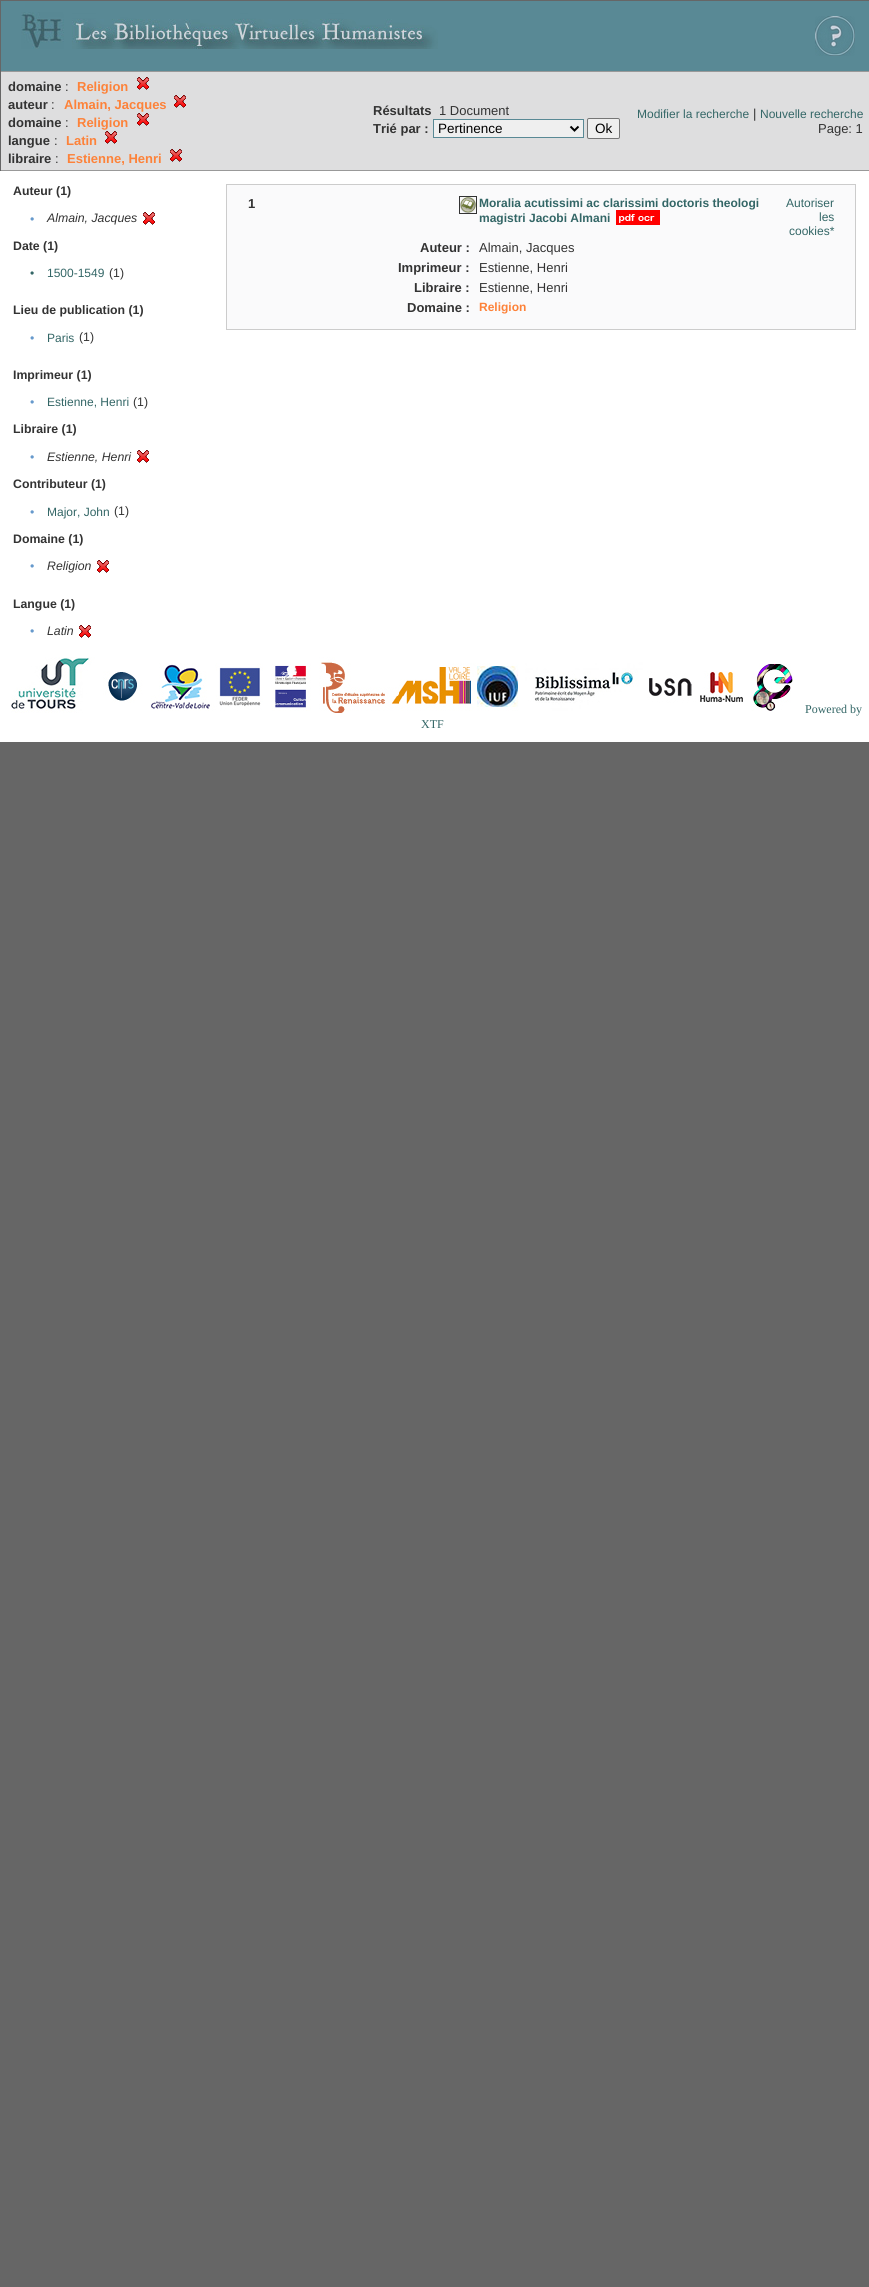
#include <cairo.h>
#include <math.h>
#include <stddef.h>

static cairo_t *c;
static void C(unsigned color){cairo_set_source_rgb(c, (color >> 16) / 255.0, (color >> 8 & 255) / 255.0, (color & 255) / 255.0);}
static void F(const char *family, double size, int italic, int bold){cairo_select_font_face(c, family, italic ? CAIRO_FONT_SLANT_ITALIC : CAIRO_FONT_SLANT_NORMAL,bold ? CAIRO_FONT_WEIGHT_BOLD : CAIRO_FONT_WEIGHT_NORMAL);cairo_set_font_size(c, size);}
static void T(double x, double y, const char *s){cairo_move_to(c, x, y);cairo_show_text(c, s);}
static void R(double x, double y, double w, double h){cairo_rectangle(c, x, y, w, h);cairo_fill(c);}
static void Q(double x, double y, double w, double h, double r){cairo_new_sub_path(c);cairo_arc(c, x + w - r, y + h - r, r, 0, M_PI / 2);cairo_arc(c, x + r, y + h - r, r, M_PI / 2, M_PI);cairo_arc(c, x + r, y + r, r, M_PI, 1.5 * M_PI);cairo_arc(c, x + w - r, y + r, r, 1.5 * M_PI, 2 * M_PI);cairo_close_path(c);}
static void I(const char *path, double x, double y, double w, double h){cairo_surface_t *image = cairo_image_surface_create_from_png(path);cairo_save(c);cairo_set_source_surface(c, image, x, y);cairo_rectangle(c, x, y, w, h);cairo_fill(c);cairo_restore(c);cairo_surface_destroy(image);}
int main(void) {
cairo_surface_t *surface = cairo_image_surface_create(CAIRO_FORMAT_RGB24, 869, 2287);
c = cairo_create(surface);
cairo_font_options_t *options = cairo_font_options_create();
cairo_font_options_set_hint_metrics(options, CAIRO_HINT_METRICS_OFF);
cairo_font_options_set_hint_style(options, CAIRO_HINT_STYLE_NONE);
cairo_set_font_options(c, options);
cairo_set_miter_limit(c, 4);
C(0x666666);
cairo_paint(c);
C(0x598995);
R(1,1,868,70);
I("1.png",21,12,417,37);
I("2.png",815,16,40,40);
C(0xdededf);
R(1,72,868,98);
C(0x999999);
R(0,71,869,1);
R(0,170,869,1);
C(0x666666);
R(0,71,1,100);
F("Liberation Sans",13,0,1);
C(0x333333);
T(8,91,"domaine");
F("Liberation Sans",13,0,0);
T(65,91,":");
F("Liberation Sans",13,0,1);
C(0xfd8239);
T(77,91,"Religion");
I("3.png",137,77,12,13);
C(0x333333);
T(8,109,"auteur");
F("Liberation Sans",13,0,0);
T(51,109,":");
F("Liberation Sans",13,0,1);
C(0xfd8239);
T(64,109,"Almain, Jacques");
I("3.png",174,95,12,13);
C(0x333333);
T(8,127,"domaine");
F("Liberation Sans",13,0,0);
T(65,127,":");
F("Liberation Sans",13,0,1);
C(0xfd8239);
T(77,127,"Religion");
I("3.png",137,113,12,13);
C(0x333333);
T(8,145,"langue");
F("Liberation Sans",13,0,0);
T(54,145,":");
F("Liberation Sans",13,0,1);
C(0xfd8239);
T(66,145,"Latin");
I("3.png",105,131,12,13);
C(0x333333);
T(8,163,"libraire");
F("Liberation Sans",13,0,0);
T(55,163,":");
F("Liberation Sans",13,0,1);
C(0xfd8239);
T(67,163,"Estienne, Henri");
I("3.png",170,149,12,13);
C(0x333333);
T(373,115,"Résultats");
F("Liberation Sans",13,0,0);
T(439,115,"1 Document");
F("Liberation Sans",13,0,1);
T(373,133,"Trié par :");
C(0xefefef);
cairo_rectangle(c,433.5,119.5,150,18);
cairo_fill_preserve(c);
C(0x598995);
cairo_set_line_width(c,1);
cairo_stroke(c);
cairo_new_path(c);
cairo_move_to(c,570.5,126.5);
cairo_line_to(c,574.5,130.5);
cairo_line_to(c,578.5,126.5);
C(0x000000);
cairo_set_line_width(c,2);
cairo_stroke(c);
F("Liberation Sans",13.5,0,0);
T(438,133,"Pertinence");
C(0xefefef);
Q(587.5,118.5,32,20,1.5);
cairo_fill_preserve(c);
C(0x767676);
cairo_set_line_width(c,1);
cairo_stroke(c);
C(0x000000);
T(595,133,"Ok");
F("Liberation Sans",12,0,0);
C(0x336666);
T(637,118,"Modifier la recherche");
F("Liberation Sans",13,0,0);
C(0x333333);
T(753,118,"|");
F("Liberation Sans",12,0,0);
C(0x336666);
T(760,118,"Nouvelle recherche");
F("Liberation Sans",13,0,0);
C(0x333333);
T(818,133,"Page: 1");
C(0xffffff);
R(0,171,869,571);
F("Liberation Sans",12.3,0,1);
C(0x333333);
T(13,195,"Auteur (1)");
F("Liberation Sans",12.3,0,0);
C(0x6699cc);
T(30,223,"•");
F("Liberation Sans",12.3,1,0);
C(0x333333);
T(47,222,"Almain, Jacques");
I("4.png",143,212,12,13);
F("Liberation Sans",12.3,0,1);
T(13,250,"Date (1)");
F("Liberation Sans",12,0,0);
C(0x336666);
T(30,277,"•");
T(47,277,"1500-1549");
F("Liberation Sans",12.3,0,0);
C(0x333333);
T(109,277,"(1)");
F("Liberation Sans",12.3,0,1);
T(13,314,"Lieu de publication (1)");
F("Liberation Sans",12.3,0,0);
C(0x6699cc);
T(30,342,"•");
F("Liberation Sans",12,0,0);
C(0x336666);
T(47,342,"Paris");
F("Liberation Sans",12.3,0,0);
C(0x333333);
T(79,341,"(1)");
F("Liberation Sans",12.3,0,1);
T(13,379,"Imprimeur (1)");
F("Liberation Sans",12.3,0,0);
C(0x6699cc);
T(30,406,"•");
F("Liberation Sans",12,0,0);
C(0x336666);
T(47,406,"Estienne, Henri");
F("Liberation Sans",12.3,0,0);
C(0x333333);
T(133,406,"(1)");
F("Liberation Sans",12.3,0,1);
T(13,433,"Libraire (1)");
F("Liberation Sans",12.3,0,0);
C(0x6699cc);
T(30,461,"•");
F("Liberation Sans",12.3,1,0);
C(0x333333);
T(47,461,"Estienne, Henri");
I("4.png",137,450,12,13);
F("Liberation Sans",12.3,0,1);
T(13,488,"Contributeur (1)");
F("Liberation Sans",12.3,0,0);
C(0x6699cc);
T(30,516,"•");
F("Liberation Sans",12,0,0);
C(0x336666);
T(47,516,"Major, John");
F("Liberation Sans",12.3,0,0);
C(0x333333);
T(114,515,"(1)");
F("Liberation Sans",12.3,0,1);
T(13,543,"Domaine (1)");
F("Liberation Sans",12.3,0,0);
C(0x6699cc);
T(30,570,"•");
F("Liberation Sans",12.3,1,0);
C(0x333333);
T(47,570,"Religion");
I("4.png",97,560,12,13);
F("Liberation Sans",12.3,0,1);
T(13,608,"Langue (1)");
F("Liberation Sans",12.3,0,0);
C(0x6699cc);
T(30,635,"•");
F("Liberation Sans",12.3,1,0);
C(0x333333);
T(47,635,"Latin");
I("4.png",79,625,12,13);
C(0xfafafb);
cairo_rectangle(c,226.5,184.5,629,145);
cairo_fill_preserve(c);
C(0xcccccc);
cairo_stroke(c);
F("Liberation Sans",13,0,1);
C(0x333333);
T(248,208,"1");
cairo_rectangle(c,459.5,196.5,17,17);
cairo_stroke(c);
I("5.png",460,197,16,16);
F("Liberation Sans",12,0,1);
C(0x336666);
T(479,207,"Moralia acutissimi ac clarissimi doctoris theologi");
T(479,222,"magistri Jacobi Almani");
I("6.png",616,210,44,15);
F("Liberation Sans",12,0,0);
T(786,207,"Autoriser");
T(819,221,"les");
T(789,235,"cookies*");
F("Liberation Sans",13,0,1);
C(0x333333);
T(420,252,"Auteur :");
F("Liberation Sans",13,0,0);
T(479,252,"Almain, Jacques");
F("Liberation Sans",13,0,1);
T(398,272,"Imprimeur :");
F("Liberation Sans",13,0,0);
T(479,272,"Estienne, Henri");
F("Liberation Sans",13,0,1);
T(414,292,"Libraire :");
F("Liberation Sans",13,0,0);
T(479,292,"Estienne, Henri");
F("Liberation Sans",13,0,1);
T(407,312,"Domaine :");
F("Liberation Sans",12,0,1);
C(0xfd8239);
T(479,311,"Religion");
I("7.png",11,657,782,56);
F("Liberation Serif",12,0,0);
C(0x336666);
T(805,713,"Powered by");
T(421,728,"XTF");
cairo_surface_write_to_png(surface, "o.png");
cairo_font_options_destroy(options);
cairo_destroy(c);
cairo_surface_destroy(surface);
return 0;
}
